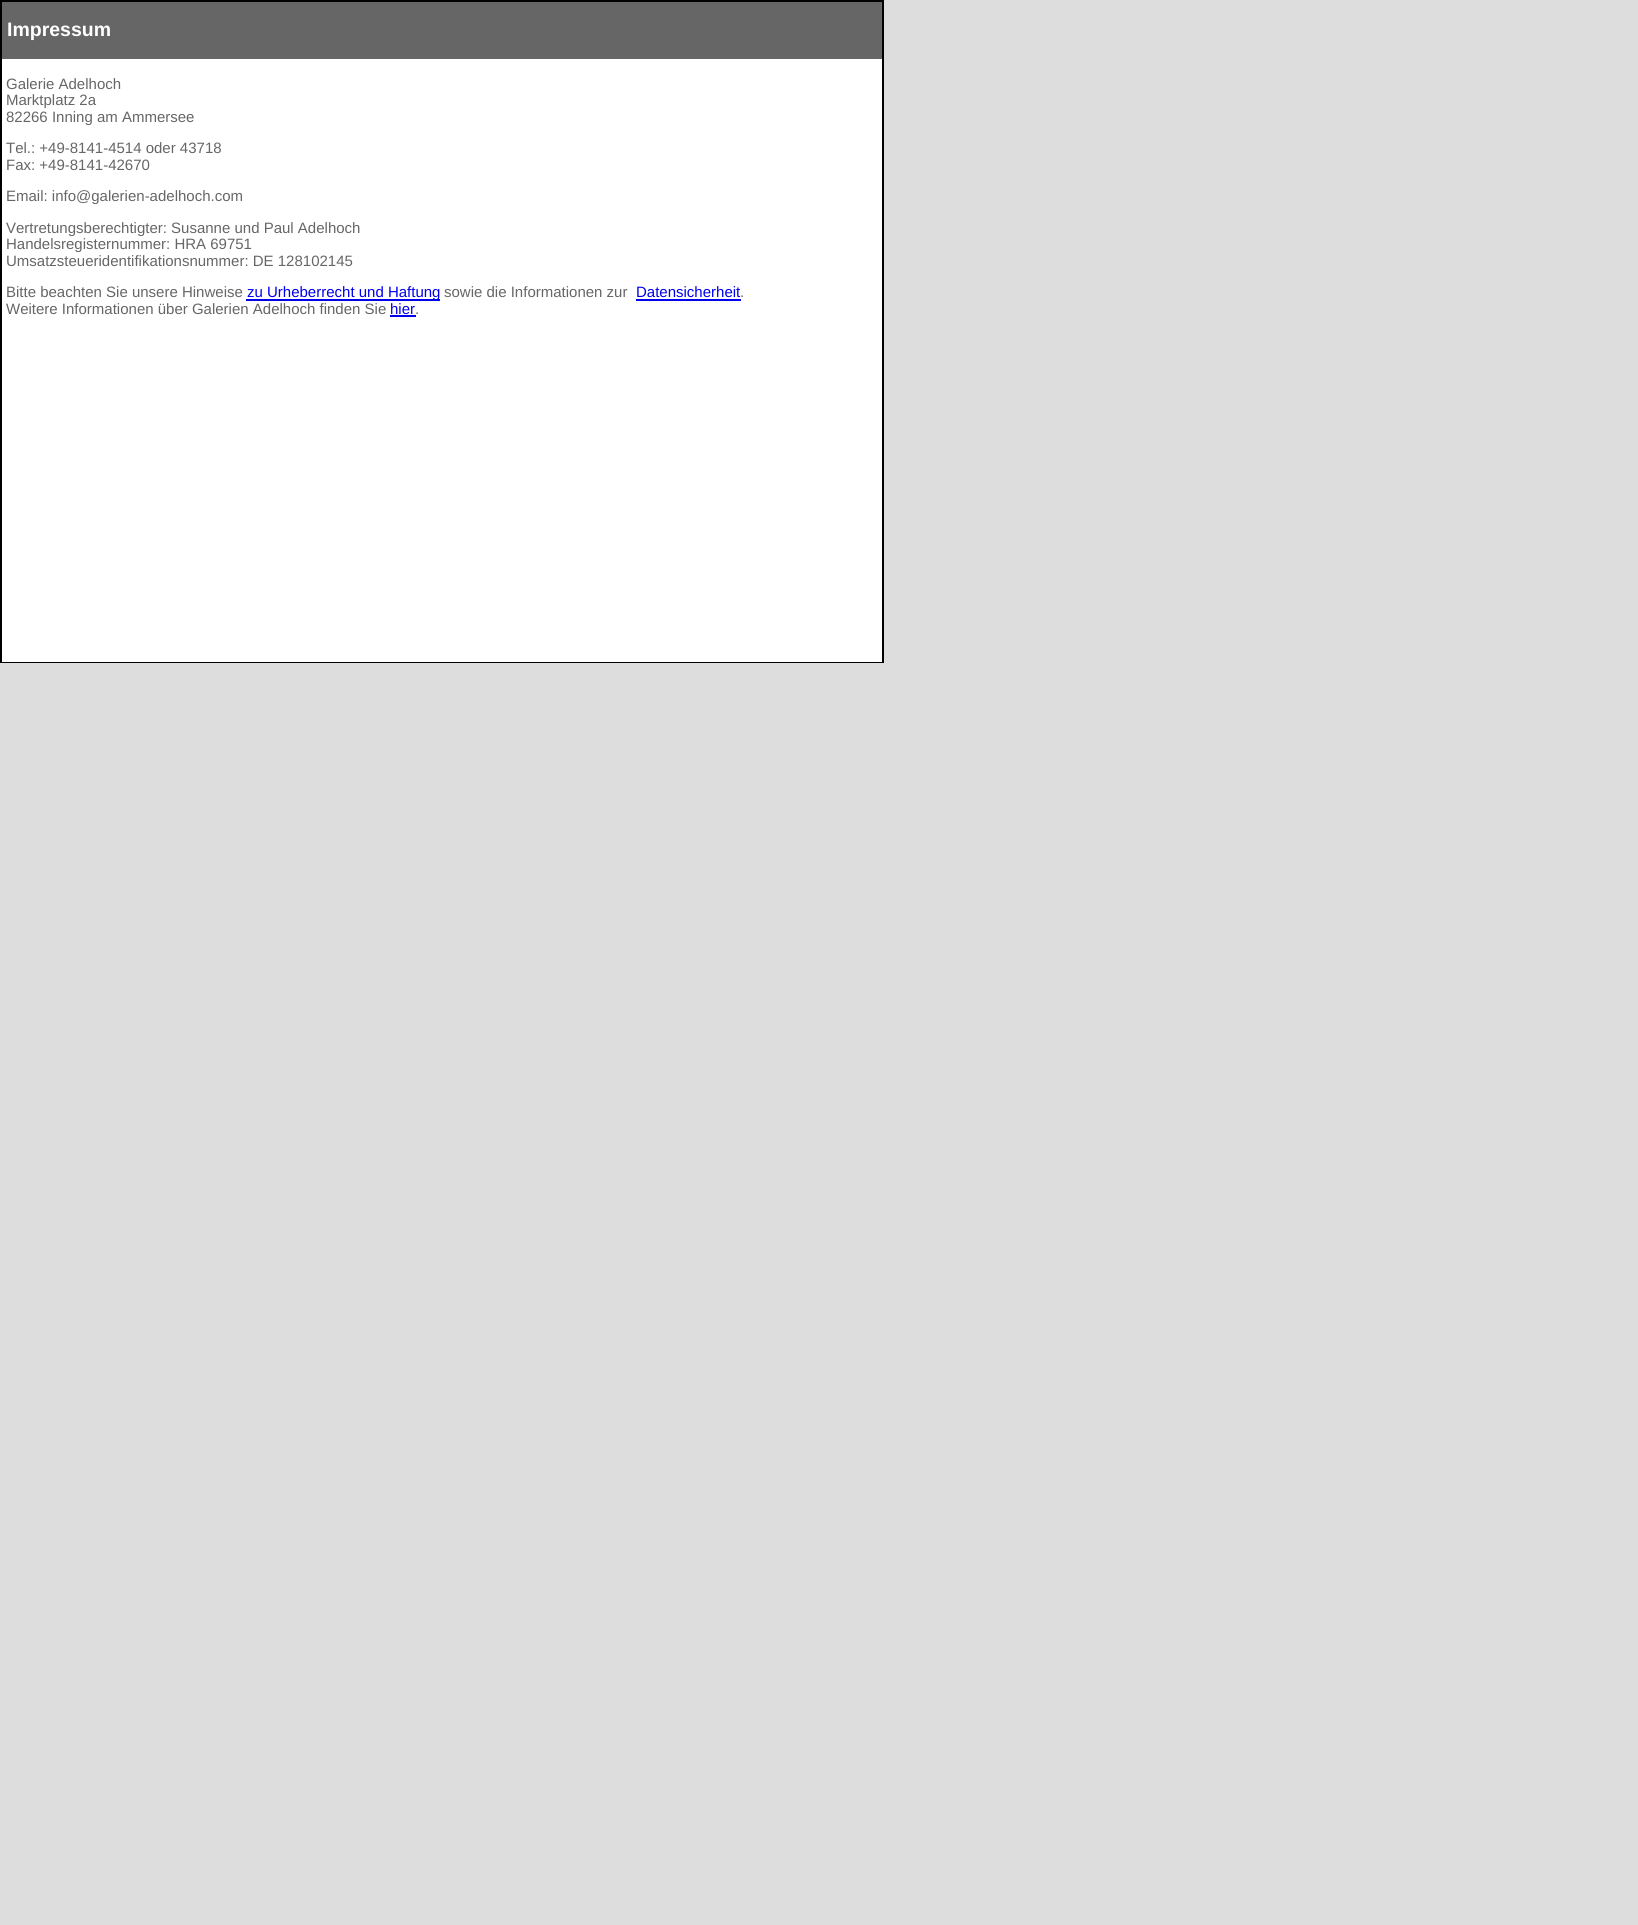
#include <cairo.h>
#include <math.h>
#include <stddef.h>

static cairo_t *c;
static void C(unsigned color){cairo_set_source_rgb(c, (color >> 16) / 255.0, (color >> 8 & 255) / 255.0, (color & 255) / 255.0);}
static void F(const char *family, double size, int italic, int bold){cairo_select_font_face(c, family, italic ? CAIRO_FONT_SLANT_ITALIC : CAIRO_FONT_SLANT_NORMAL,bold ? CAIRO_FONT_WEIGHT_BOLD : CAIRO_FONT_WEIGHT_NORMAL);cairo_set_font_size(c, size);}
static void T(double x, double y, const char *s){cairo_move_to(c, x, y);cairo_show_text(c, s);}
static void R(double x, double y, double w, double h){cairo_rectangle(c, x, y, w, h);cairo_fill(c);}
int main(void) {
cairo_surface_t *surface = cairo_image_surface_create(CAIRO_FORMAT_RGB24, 1638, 1925);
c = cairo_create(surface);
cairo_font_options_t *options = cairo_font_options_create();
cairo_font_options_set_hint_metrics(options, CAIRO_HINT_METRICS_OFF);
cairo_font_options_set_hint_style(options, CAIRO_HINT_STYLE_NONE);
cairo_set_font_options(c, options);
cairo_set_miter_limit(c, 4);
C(0xdddddd);
cairo_paint(c);
cairo_rectangle(c,1,1,882,661);
C(0x000000);
cairo_stroke(c);
C(0x666666);
R(2,2,880,57);
F("Liberation Sans",19.5,0,1);
C(0xffffff);
T(7,36,"Impressum");
R(2,59,880,603);
F("Liberation Sans",15,0,0);
C(0x666666);
T(6,89,"Galerie Adelhoch");
T(6,105,"Marktplatz 2a");
T(6,122,"82266 Inning am Ammersee");
T(6,153,"Tel.: +49-8141-4514 oder 43718");
T(6,170,"Fax: +49-8141-42670");
T(6,201,"Email: info@galerien-adelhoch.com");
T(6,233,"Vertretungsberechtigter: Susanne und Paul Adelhoch");
T(6,249,"Handelsregisternummer: HRA 69751");
T(6,266,"Umsatzsteueridentifikationsnummer: DE 128102145");
T(6,297,"Bitte beachten Sie unsere Hinweise");
C(0x0000ee);
R(246,299,194,2);
T(247,297,"zu Urheberrecht und Haftung");
C(0x666666);
T(444,297,"sowie die Informationen zur");
C(0x0000ee);
T(636,297,"Datensicherheit");
R(636,299,105,2);
C(0x666666);
T(740,297,".");
T(6,314,"Weitere Informationen über Galerien Adelhoch finden Sie");
C(0x0000ee);
T(390,314,"hier");
R(390,315,26,2);
C(0x666666);
T(415,314,".");
cairo_surface_write_to_png(surface, "o.png");
cairo_font_options_destroy(options);
cairo_destroy(c);
cairo_surface_destroy(surface);
return 0;
}
